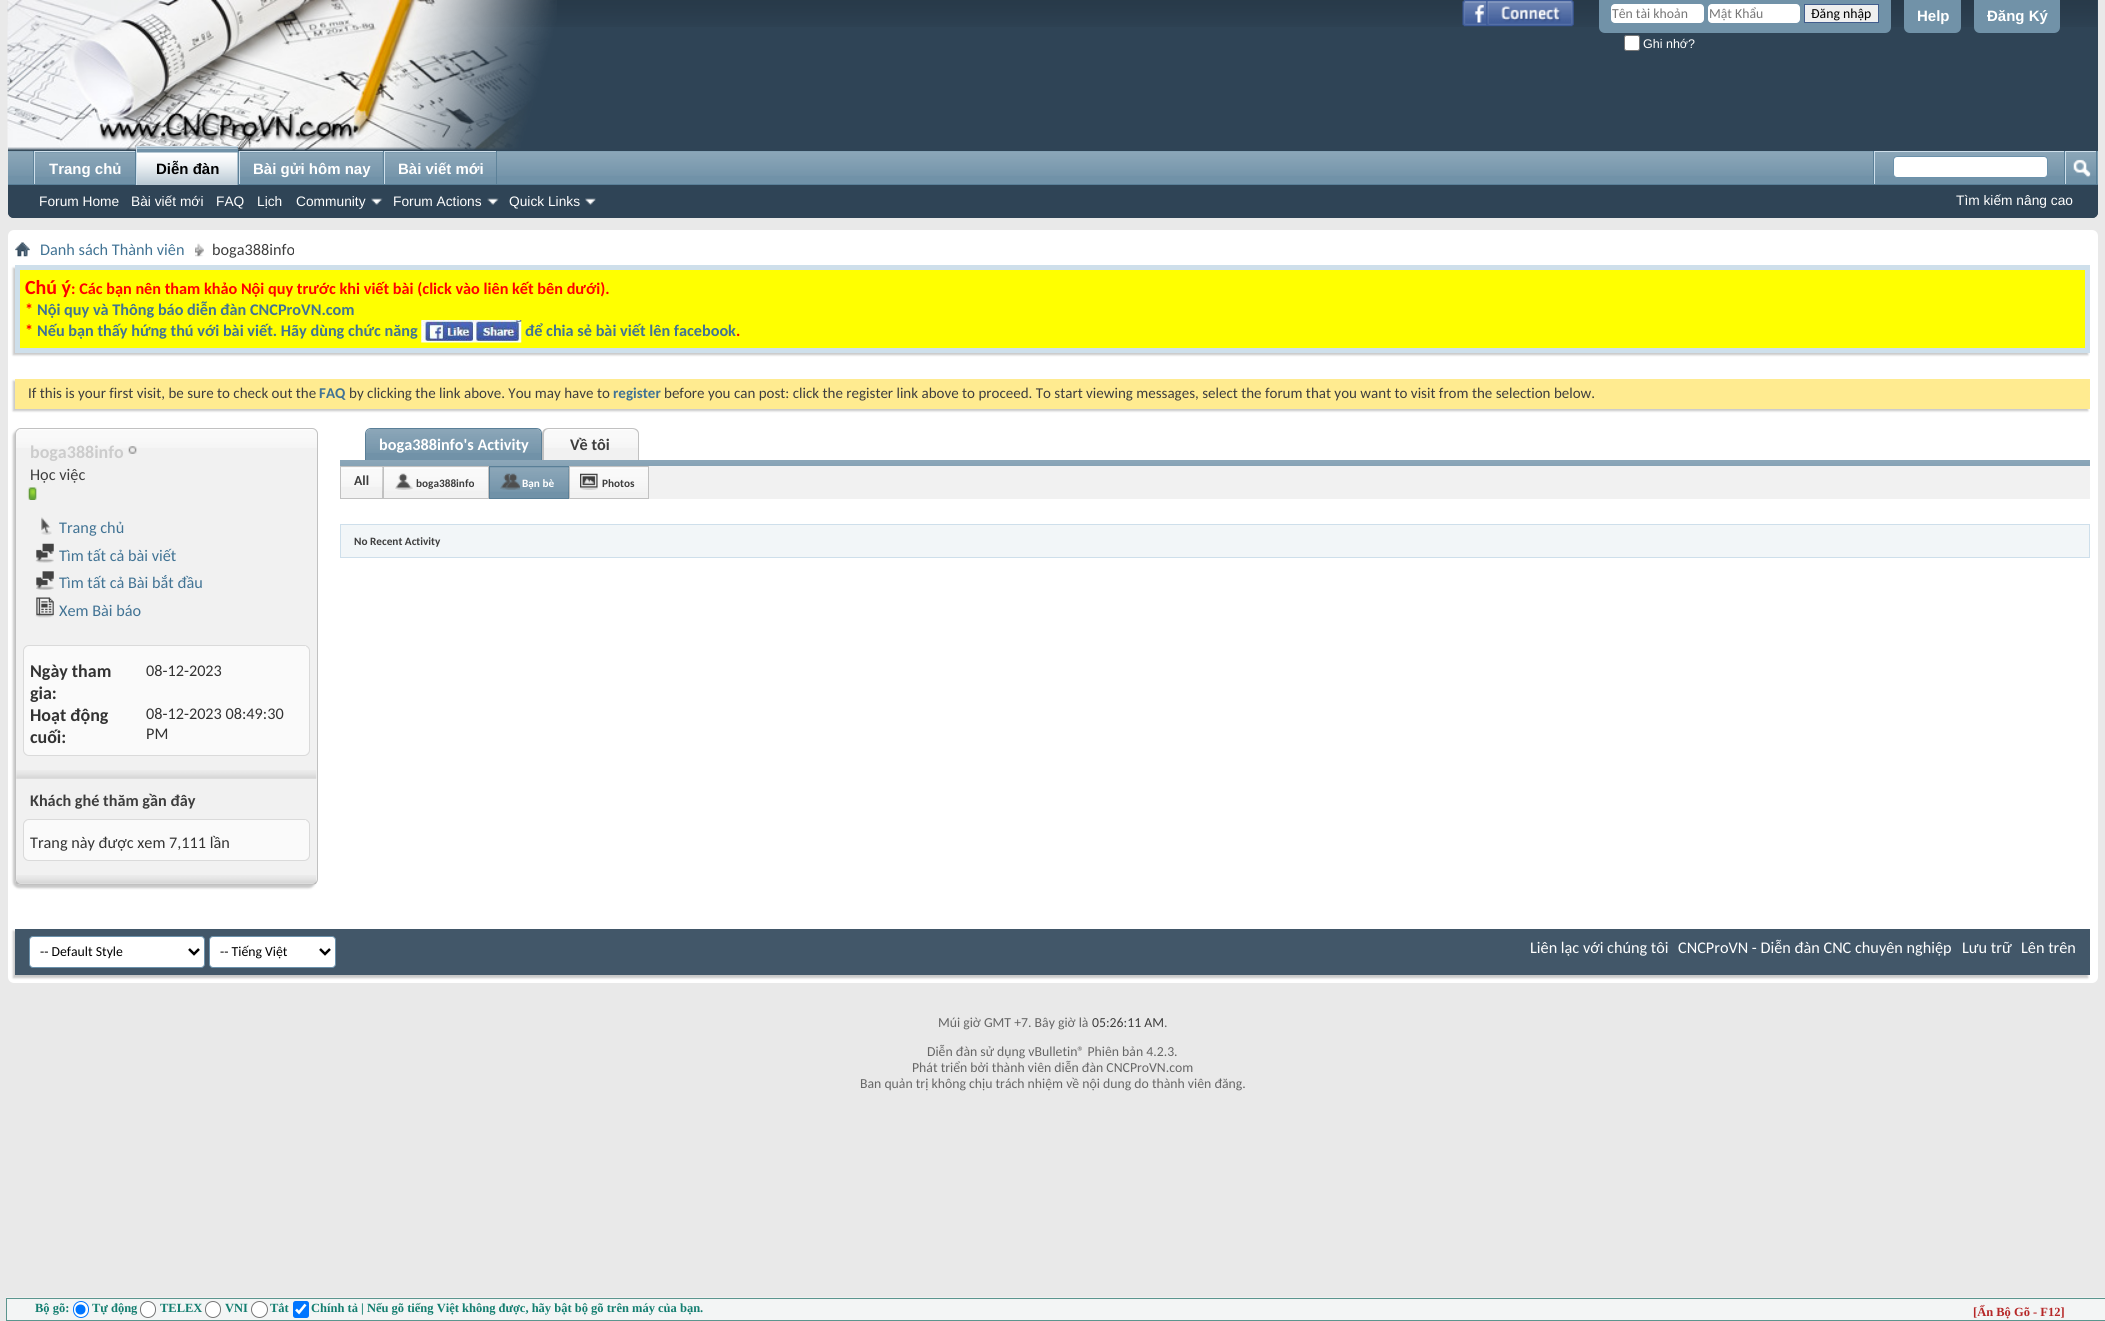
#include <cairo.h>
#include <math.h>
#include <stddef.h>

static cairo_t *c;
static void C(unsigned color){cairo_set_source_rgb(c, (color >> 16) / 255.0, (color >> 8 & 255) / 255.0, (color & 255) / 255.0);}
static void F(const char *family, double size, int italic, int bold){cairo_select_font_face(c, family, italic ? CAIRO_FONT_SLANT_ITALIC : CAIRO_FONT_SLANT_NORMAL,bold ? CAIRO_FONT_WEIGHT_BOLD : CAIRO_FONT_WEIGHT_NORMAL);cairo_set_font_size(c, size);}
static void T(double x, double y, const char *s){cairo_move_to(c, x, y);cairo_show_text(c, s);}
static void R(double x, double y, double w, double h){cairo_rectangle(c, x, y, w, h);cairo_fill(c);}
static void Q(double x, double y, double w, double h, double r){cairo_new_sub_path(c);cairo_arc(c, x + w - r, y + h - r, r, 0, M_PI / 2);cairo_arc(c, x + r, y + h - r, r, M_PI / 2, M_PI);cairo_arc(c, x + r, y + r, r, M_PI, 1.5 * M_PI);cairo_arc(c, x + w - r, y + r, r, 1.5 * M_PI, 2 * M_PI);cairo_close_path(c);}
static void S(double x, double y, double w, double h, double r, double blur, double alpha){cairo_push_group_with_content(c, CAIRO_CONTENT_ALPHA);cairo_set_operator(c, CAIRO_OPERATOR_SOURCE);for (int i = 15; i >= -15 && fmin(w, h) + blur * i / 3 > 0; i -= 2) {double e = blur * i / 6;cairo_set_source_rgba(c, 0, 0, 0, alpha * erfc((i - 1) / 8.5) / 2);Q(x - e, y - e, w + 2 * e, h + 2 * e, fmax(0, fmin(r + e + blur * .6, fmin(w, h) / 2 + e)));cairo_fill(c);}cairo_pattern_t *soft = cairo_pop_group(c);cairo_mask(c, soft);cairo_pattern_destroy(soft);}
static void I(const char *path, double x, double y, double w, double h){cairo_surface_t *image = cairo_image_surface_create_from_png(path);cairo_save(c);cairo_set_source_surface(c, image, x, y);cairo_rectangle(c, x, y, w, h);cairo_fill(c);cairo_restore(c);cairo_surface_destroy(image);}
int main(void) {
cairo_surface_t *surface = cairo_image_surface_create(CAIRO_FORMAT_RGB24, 2105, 1321);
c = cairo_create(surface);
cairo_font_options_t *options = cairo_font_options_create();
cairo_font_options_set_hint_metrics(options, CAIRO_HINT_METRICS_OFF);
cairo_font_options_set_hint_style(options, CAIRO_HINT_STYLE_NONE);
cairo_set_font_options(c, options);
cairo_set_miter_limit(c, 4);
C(0xe9e9e9);
cairo_paint(c);
C(0x2f4456);
cairo_new_path(c);
cairo_move_to(c,8,0);
cairo_line_to(c,2098,0);
cairo_line_to(c,2098,212);
cairo_curve_to(c,2098,215.5,2095.5,218,2092,218);
cairo_line_to(c,14,218);
cairo_curve_to(c,10.5,218,8,215.5,8,212);
cairo_close_path(c);
cairo_fill(c);
I("1.png",7,0,2090,27);
I("2.png",7,0,550,151);
I("3.png",1462,0,112,27);
C(0x7192a8);
cairo_new_path(c);
cairo_move_to(c,1599,0);
cairo_line_to(c,1891,0);
cairo_line_to(c,1891,27);
cairo_curve_to(c,1891,30.5,1888.5,33,1885,33);
cairo_line_to(c,1605,33);
cairo_curve_to(c,1601.5,33,1599,30.5,1599,27);
cairo_close_path(c);
cairo_fill(c);
C(0xffffff);
Q(1611,4,93,19,4);
cairo_fill(c);
F("Carlito",13.75,0,0);
C(0x777777);
T(1612,18,"Tên tài khoản");
C(0xffffff);
Q(1708,4,92,19,4);
cairo_fill(c);
C(0x777777);
T(1709,18,"Mật Khẩu");
C(0xefefef);
cairo_rectangle(c,1804.5,4.5,74,18);
cairo_fill_preserve(c);
C(0x415d8d);
cairo_set_line_width(c,1);
cairo_stroke(c);
C(0x000000);
T(1811,18,"Đăng nhập");
C(0xffffff);
Q(1624.5,35.5,15,15,2);
cairo_fill_preserve(c);
C(0x767676);
cairo_stroke(c);
F("Liberation Sans",12.5,0,0);
C(0xffffff);
T(1643,48,"Ghi nhớ?");
C(0x7192a8);
cairo_new_path(c);
cairo_move_to(c,1904,0);
cairo_line_to(c,1961,0);
cairo_line_to(c,1961,27);
cairo_curve_to(c,1961,30.5,1958.5,33,1955,33);
cairo_line_to(c,1910,33);
cairo_curve_to(c,1906.5,33,1904,30.5,1904,27);
cairo_close_path(c);
cairo_fill(c);
F("Liberation Sans",15,0,1);
C(0xffffff);
T(1917,21,"Help");
C(0x7192a8);
cairo_new_path(c);
cairo_move_to(c,1974,0);
cairo_line_to(c,2060,0);
cairo_line_to(c,2060,27);
cairo_curve_to(c,2060,30.5,2057.5,33,2054,33);
cairo_line_to(c,1980,33);
cairo_curve_to(c,1976.5,33,1974,30.5,1974,27);
cairo_close_path(c);
cairo_fill(c);
C(0xffffff);
T(1987,21,"Đăng Ký");
C(0x2f4456);
cairo_new_path(c);
cairo_move_to(c,8,151);
cairo_line_to(c,2098,151);
cairo_line_to(c,2098,212);
cairo_curve_to(c,2098,215.5,2095.5,218,2092,218);
cairo_line_to(c,14,218);
cairo_curve_to(c,10.5,218,8,215.5,8,212);
cairo_close_path(c);
cairo_fill(c);
C(0x7192a8);
R(8,151,2090,33);
I("4.png",8,151,2090,25);
C(0x5a7f97);
R(135,151,1,34);
R(33,151,1,34);
C(0x7192a8);
R(35,152,100,24);
I("5.png",33,152,102,25);
C(0xcedfeb);
R(34,151,101,1);
R(34,151,1,34);
C(0xffffff);
T(49,174,"Trang chủ");
C(0x5a7f97);
R(238,151,1,33);
R(383,151,1,34);
C(0x7192a8);
R(240,152,143,24);
I("7.png",238,152,145,25);
C(0xcedfeb);
R(239,151,144,1);
R(239,151,1,34);
C(0x5a7f97);
R(496,151,1,34);
C(0x7192a8);
R(385,152,111,24);
I("8.png",383,152,114,25);
C(0xcedfeb);
R(384,151,112,1);
R(384,151,1,34);
C(0x5a7f97);
R(8,184,2090,1);
C(0x7192a8);
R(137,147,101,38);
I("6.png",137,147,101,38);
C(0xcedfeb);
R(136,146,102,1);
R(136,146,1,39);
C(0x000000);
T(156,174,"Diễn đàn");
C(0xffffff);
T(253,174,"Bài gửi hôm nay");
T(398,174,"Bài viết mới");
F("Liberation Sans",13.75,0,0);
T(39,206,"Forum Home");
T(131,206,"Bài viết mới");
T(216,206,"FAQ");
T(257,206,"Lịch");
T(296,206,"Community");
I("9.png",371,198,12,7);
T(393,206,"Forum Actions");
I("10.png",487,198,12,7);
T(509,206,"Quick Links");
I("11.png",585,198,11,7);
C(0x5a7f97);
R(1873,151,1,33);
C(0xcedfeb);
R(1874,151,190,1);
R(1874,151,1,33);
C(0xffffff);
Q(1893.5,156.5,154,21,3.5);
cairo_fill_preserve(c);
C(0x6b91ab);
cairo_stroke(c);
C(0x5a7f97);
R(2096,151,1,33);
R(2064,151,1,33);
C(0xcedfeb);
R(2065,151,31,1);
R(2065,151,1,33);
I("12.png",2073,159,18,19);
C(0xffffff);
T(1956,205,"Tìm kiếm nâng cao");
Q(8,230,2090,753,6);
cairo_fill(c);
I("13.png",15,242,15,15);
I("14.png",195,243,9,14);
F("Carlito",16.25,0,0);
C(0x417394);
T(40,255,"Danh sách Thành viên");
C(0x3e3e3e);
T(212,255,"boga388info");
C(0xc8c8c8);
S(13,268,2075,87,0,1,1);
C(0xcedfeb);
R(15,265,2075,88);
C(0xffff00);
R(20,270,2065,78);
F("Carlito",20,0,1);
C(0xff0000);
T(25,294,"Chú ý");
F("Carlito",16.25,0,1);
T(71,294,": Các bạn nên tham khảo Nội quy trước khi viết bài (click vào liên kết bên dưới).");
T(25,315,"*");
C(0x417394);
T(37,315,"Nội quy và Thông báo diễn đàn CNCProVN.com");
C(0xff0000);
T(25,336,"*");
C(0x417394);
T(37,336,"Nếu bạn thấy hứng thú với bài viết. Hãy dùng chức năng");
I("15.png",421,320,101,23);
T(525,336,"để chia sẻ bài viết lên facebook");
C(0xff0000);
T(736,336,".");
C(0xc8c8c8);
S(13,381,2075,30,0,1,1);
C(0xffeb90);
R(15,379,2075,30);
F("Carlito",15,0,0);
C(0x3e3e3e);
T(28,398,"If this is your first visit, be sure to check out the");
F("Carlito",15,0,1);
C(0x417394);
T(319,398,"FAQ");
F("Carlito",15,0,0);
C(0x3e3e3e);
T(349,398,"by clicking the link above. You may have to");
F("Carlito",15,0,1);
C(0x417394);
T(613,398,"register");
F("Carlito",15,0,0);
C(0x3e3e3e);
T(664,398,"before you can post: click the register link above to proceed. To start viewing messages, select the forum that you want to visit from the selection below.");
C(0xc8c8c8);
S(13,430,302,458,6,1,1);
C(0xf1f1f1);
Q(15,428,303,457,6);
cairo_fill(c);
I("16.png",15,429,302,19);
Q(15.5,428.5,302,456,5.5);
C(0xc1c1c1);
cairo_stroke(c);
C(0xf5f5f5);
R(19,429,1,1);
F("Carlito",18,0,1);
C(0xcccccc);
T(30,458,"boga388info");
I("17.png",128,446,9,8);
F("Carlito",16.25,0,0);
C(0x3e3e3e);
T(30,480,"Học việc");
I("18.png",27,487,10,13);
I("19.png",41,517,11,18);
C(0x417394);
T(59,533,"Trang chủ");
I("20.png",35,543,19,20);
T(59,561,"Tìm tất cả bài viết");
I("21.png",36,571,18,19);
T(59,588,"Tìm tất cả Bài bắt đầu");
I("22.png",35,597,19,21);
T(59,616,"Xem Bài báo");
Q(23.5,645.5,286,110,5.5);
C(0xdadada);
cairo_stroke(c);
C(0xfafafa);
Q(24,646,285,109,6);
cairo_fill(c);
R(305,646,1,1);
F("Carlito",18,0,1);
C(0x333333);
T(30,677,"Ngày tham");
T(30,699,"gia:");
F("Carlito",16.25,0,0);
T(146,676,"08-12-2023");
F("Carlito",18,0,1);
T(30,721,"Hoạt động");
T(30,743,"cuối:");
F("Carlito",16.25,0,0);
T(146,719,"08-12-2023 08:49:30");
T(146,739,"PM");
I("23.png",16,770,301,9);
F("Carlito",16.25,0,1);
C(0x3e3e3e);
T(30,806,"Khách ghé thăm gần đây");
Q(23.5,819.5,286,41,5.5);
C(0xdadada);
cairo_stroke(c);
C(0xfafafa);
Q(24,820,285,40,6);
cairo_fill(c);
R(305,820,1,1);
F("Carlito",16.25,0,0);
C(0x333333);
T(30,848,"Trang này được xem 7,111 lần");
I("24.png",16,875,301,9);
C(0x7192a8);
cairo_new_path(c);
cairo_move_to(c,371,429);
cairo_line_to(c,536,429);
cairo_curve_to(c,539,429,541,431,541,434);
cairo_line_to(c,541,460);
cairo_line_to(c,366,460);
cairo_line_to(c,366,434);
cairo_curve_to(c,366,431,368,429,371,429);
cairo_close_path(c);
cairo_fill(c);
I("25.png",366,429,175,24);
C(0x5a7f97);
cairo_set_fill_rule(c,CAIRO_FILL_RULE_EVEN_ODD);
cairo_new_path(c);
cairo_move_to(c,371,428);
cairo_line_to(c,536,428);
cairo_curve_to(c,540,428,542,430,542,434);
cairo_line_to(c,542,460);
cairo_line_to(c,365,460);
cairo_line_to(c,365,434);
cairo_curve_to(c,365,430,368,428,371,428);
cairo_close_path(c);
cairo_move_to(c,371,429);
cairo_line_to(c,536,429);
cairo_curve_to(c,539,429,541,431,541,434);
cairo_line_to(c,541,460);
cairo_line_to(c,366,460);
cairo_line_to(c,366,434);
cairo_curve_to(c,366,431,368,429,371,429);
cairo_close_path(c);
cairo_fill(c);
F("Carlito",16.25,0,1);
C(0xffffff);
T(379,450,"boga388info's Activity");
C(0xf1f1f1);
cairo_new_path(c);
cairo_move_to(c,549,429);
cairo_line_to(c,633,429);
cairo_curve_to(c,636,429,638,431,638,434);
cairo_line_to(c,638,460);
cairo_line_to(c,544,460);
cairo_line_to(c,544,434);
cairo_curve_to(c,544,431,546,429,549,429);
cairo_close_path(c);
cairo_fill(c);
I("26.png",544,429,94,19);
C(0xc1c1c1);
cairo_new_path(c);
cairo_move_to(c,549,428);
cairo_line_to(c,632,428);
cairo_curve_to(c,636,428,639,430,639,434);
cairo_line_to(c,639,460);
cairo_line_to(c,542,460);
cairo_line_to(c,542,434);
cairo_curve_to(c,542,430,545,428,549,428);
cairo_close_path(c);
cairo_move_to(c,549,429);
cairo_line_to(c,632,429);
cairo_curve_to(c,635,429,638,431,638,434);
cairo_line_to(c,638,460);
cairo_line_to(c,544,460);
cairo_line_to(c,544,434);
cairo_curve_to(c,544,431,546,429,549,429);
cairo_close_path(c);
cairo_fill(c);
C(0x3e3e3e);
T(570,450,"Về tôi");
C(0x7192a8);
R(340,460,1750,6);
I("27.png",340,460,1750,6);
C(0xf1f1f1);
R(341,466,1749,33);
I("28.png",341,467,41,20);
cairo_rectangle(c,340.5,466.5,42,32);
C(0xc1c1c1);
cairo_stroke(c);
F("Carlito",13.75,0,1);
C(0x3e3e3e);
T(354,485,"All");
I("29.png",382,467,106,24);
cairo_rectangle(c,383.5,466.5,105,32);
C(0xc1c1c1);
cairo_stroke(c);
I("30.png",395,473,18,17);
F("Carlito",11.25,0,1);
C(0x3e3e3e);
T(416,487,"boga388info");
C(0x7192a8);
R(490,467,78,31);
I("31.png",490,467,78,25);
cairo_rectangle(c,489.5,466.5,79,32);
C(0x5a7f97);
cairo_stroke(c);
I("32.png",500,473,20,17);
C(0xffffff);
T(522,487,"Bạn bè");
I("33.png",568,467,80,25);
cairo_rectangle(c,569.5,466.5,79,32);
C(0xc1c1c1);
cairo_stroke(c);
I("34.png",580,473,18,17);
C(0x3e3e3e);
T(602,487,"Photos");
C(0xf2f6f8);
cairo_rectangle(c,340.5,524.5,1749,33);
cairo_fill_preserve(c);
C(0xcedfeb);
cairo_stroke(c);
C(0x3e3e3e);
T(354,545,"No Recent Activity");
C(0xc8c8c8);
S(13,931,2075,47,0,1,1);
C(0x425769);
R(15,929,2075,46);
C(0xffffff);
Q(29.5,936.5,175,31,3.5);
cairo_fill_preserve(c);
C(0x6b91ab);
cairo_stroke(c);
cairo_new_path(c);
cairo_move_to(c,189,949);
cairo_line_to(c,194,954);
cairo_line_to(c,199,949);
C(0x000000);
cairo_set_line_width(c,2.5);
cairo_stroke(c);
F("Carlito",13.75,0,0);
T(40,956,"-- Default Style");
C(0xffffff);
Q(209.5,936.5,126,31,3.5);
cairo_fill_preserve(c);
C(0x6b91ab);
cairo_set_line_width(c,1);
cairo_stroke(c);
cairo_new_path(c);
cairo_move_to(c,320,949);
cairo_line_to(c,325,954);
cairo_line_to(c,330,949);
C(0x000000);
cairo_set_line_width(c,2.5);
cairo_stroke(c);
T(220,956,"-- Tiếng Việt");
F("Carlito",16.25,0,0);
C(0xffffff);
T(1530,953,"Liên lạc với chúng tôi");
T(1678,953,"CNCProVN - Diễn đàn CNC chuyên nghiệp");
T(1962,953,"Lưu trữ");
T(2021,953,"Lên trên");
F("Carlito",13.75,0,0);
C(0x666666);
T(938,1027,"Múi giờ GMT +7. Bây giờ là");
C(0x3e3e3e);
T(1092,1027,"05:26:11 AM");
C(0x666666);
T(1164,1027,".");
T(927,1056,"Diễn đàn sử dụng vBulletin® Phiên bản 4.2.3.");
T(912,1072,"Phát triển bởi thành viên diễn đàn CNCProVN.com");
T(860,1088,"Ban quản trị không chịu trách nhiệm về nội dung do thành viên đăng.");
I("35.png",6,1297,2099,23);
cairo_rectangle(c,6.5,1298.5,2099,22);
C(0x5b958e);
cairo_set_line_width(c,1);
cairo_stroke(c);
F("Liberation Serif",12.5,0,1);
C(0x137e70);
T(35,1312,"Bộ gõ:");
C(0xffffff);
Q(73.5,1301.5,15,16,7.5);
cairo_fill_preserve(c);
C(0x0075ff);
cairo_stroke(c);
cairo_arc(c,80.5,1309.5,5,0,2 * M_PI);
cairo_fill(c);
C(0x137e70);
T(92,1312,"Tự động");
C(0xffffff);
Q(140.5,1301.5,15,16,7.5);
cairo_fill_preserve(c);
C(0x767676);
cairo_stroke(c);
C(0x137e70);
T(160,1312,"TELEX");
C(0xffffff);
Q(205.5,1301.5,15,16,7.5);
cairo_fill_preserve(c);
C(0x767676);
cairo_stroke(c);
C(0x137e70);
T(225,1312,"VNI");
C(0xffffff);
cairo_new_path(c);
cairo_arc(c,259.5,1309.5,8,0,2 * M_PI);
cairo_fill_preserve(c);
C(0x767676);
cairo_stroke(c);
C(0x137e70);
T(270,1312,"Tắt");
C(0x0075ff);
Q(293,1301,16,17,2.5);
cairo_fill(c);
cairo_new_path(c);
cairo_move_to(c,296,1309.5);
cairo_line_to(c,299,1312.5);
cairo_line_to(c,305.5,1304.5);
C(0xffffff);
cairo_set_line_width(c,2.6);
cairo_stroke(c);
C(0x137e70);
T(311,1312,"Chính tả | Nếu gõ tiếng Việt không được, hãy bật bộ gõ trên máy của bạn.");
C(0xb62727);
T(1973,1316,"[Ẩn Bộ Gõ - F12]");
cairo_surface_write_to_png(surface, "o.png");
cairo_font_options_destroy(options);
cairo_destroy(c);
cairo_surface_destroy(surface);
return 0;
}
